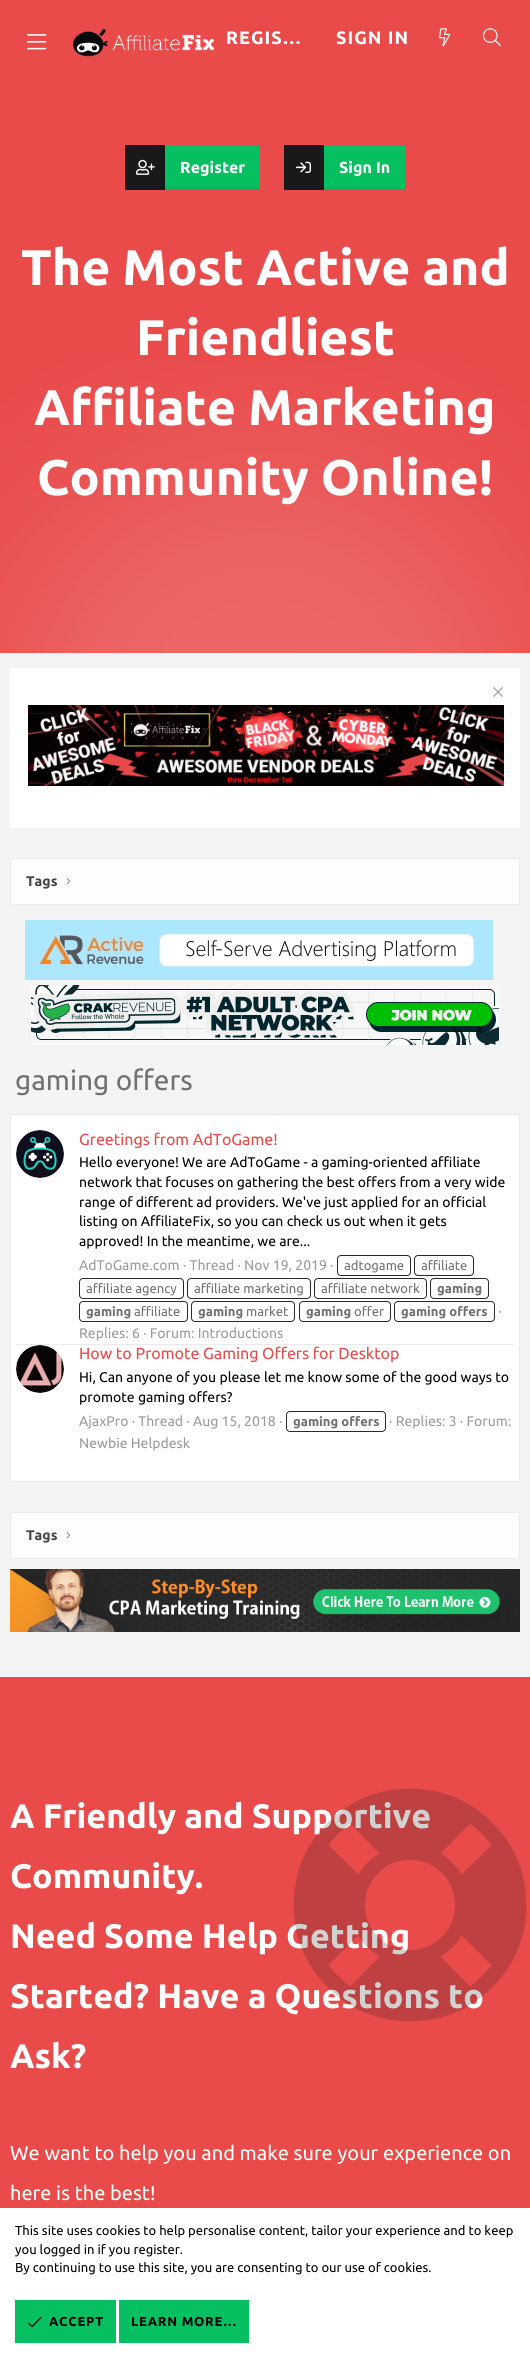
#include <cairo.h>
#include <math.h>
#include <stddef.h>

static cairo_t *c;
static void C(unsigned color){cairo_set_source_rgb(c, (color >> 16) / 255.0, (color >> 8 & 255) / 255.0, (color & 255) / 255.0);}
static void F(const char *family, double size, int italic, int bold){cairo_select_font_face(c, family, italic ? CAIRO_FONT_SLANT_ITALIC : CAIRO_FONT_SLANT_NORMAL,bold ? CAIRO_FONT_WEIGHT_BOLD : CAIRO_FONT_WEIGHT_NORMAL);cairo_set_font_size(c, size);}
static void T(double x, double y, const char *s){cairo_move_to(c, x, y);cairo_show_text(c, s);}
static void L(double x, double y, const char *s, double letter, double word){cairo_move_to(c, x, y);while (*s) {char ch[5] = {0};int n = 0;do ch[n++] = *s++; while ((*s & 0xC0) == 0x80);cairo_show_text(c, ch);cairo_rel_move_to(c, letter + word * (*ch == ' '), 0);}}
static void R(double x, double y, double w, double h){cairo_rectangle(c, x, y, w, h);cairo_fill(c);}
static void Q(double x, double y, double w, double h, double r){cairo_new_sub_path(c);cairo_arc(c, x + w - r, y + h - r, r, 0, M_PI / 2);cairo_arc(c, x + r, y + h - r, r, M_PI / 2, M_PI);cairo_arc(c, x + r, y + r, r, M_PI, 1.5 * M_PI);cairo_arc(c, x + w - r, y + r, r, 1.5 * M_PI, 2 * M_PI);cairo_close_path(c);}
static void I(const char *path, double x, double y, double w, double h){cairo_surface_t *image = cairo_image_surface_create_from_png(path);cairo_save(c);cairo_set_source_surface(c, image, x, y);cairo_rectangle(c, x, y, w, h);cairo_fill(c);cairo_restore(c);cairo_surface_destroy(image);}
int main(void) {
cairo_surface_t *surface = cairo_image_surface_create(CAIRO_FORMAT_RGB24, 530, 2356);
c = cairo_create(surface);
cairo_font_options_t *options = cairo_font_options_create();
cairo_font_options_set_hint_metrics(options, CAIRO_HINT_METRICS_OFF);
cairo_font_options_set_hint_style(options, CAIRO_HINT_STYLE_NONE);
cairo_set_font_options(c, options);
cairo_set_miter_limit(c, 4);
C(0xf4f4f4);
cairo_paint(c);
C(0xe94a4a);
R(0,0,530,653);
I("1.png",27,34,20,16);
I("2.png",73,28,141,29);
F("Ubuntu",18,0,1);
C(0xffffff);
L(226,44,"REGIS…",1,0);
L(336,44,"SIGN IN",1,0);
I("3.png",439,28,12,19);
I("4.png",483,28,18,19);
I("5.png",0,359,530,294);
C(0x191919);
R(125,145,40,45);
I("6.png",136,159,19,16);
C(0x06bf60);
R(165,145,95,42);
C(0x06b45a);
R(165,187,95,3);
F("Ubuntu",16,0,1);
C(0xffffff);
T(180,173,"Register");
C(0x191919);
R(284,145,40,45);
I("7.png",296,161,15,12);
C(0x06bf60);
R(324,145,81,42);
C(0x06b45a);
R(324,187,81,3);
C(0xffffff);
T(339,173,"Sign In");
F("Ubuntu",50,0,1);
T(21,285,"The Most Active and");
T(136,355,"Friendliest");
T(34,425,"Affiliate Marketing");
T(37,495,"Community Online!");
R(10,668,510,160);
I("8.png",493,687,10,10);
I("9.png",28,705,476,81);
C(0xfdfdfd);
cairo_rectangle(c,10.5,858.5,509,46);
cairo_fill_preserve(c);
C(0xebebeb);
cairo_set_line_width(c,1);
cairo_stroke(c);
F("Ubuntu",14,0,1);
C(0x464646);
T(26,886,"Tags");
I("10.png",66,878,5,7);
I("11.png",25,920,468,60);
I("12.png",31,985,468,60);
F("Ubuntu",28,0,0);
C(0x717171);
T(15,1090,"gaming offers");
C(0xffffff);
cairo_rectangle(c,10.5,1114.5,509,367);
cairo_fill_preserve(c);
C(0xebebeb);
cairo_stroke(c);
C(0xececed);
cairo_arc(c,40,1154,24,0,2 * M_PI);
cairo_fill(c);
I("13.png",16,1130,48,48);
F("Ubuntu",16,0,0);
C(0xe94a4a);
T(79,1145,"Greetings from AdToGame!");
F("Ubuntu",14,0,0);
C(0x000000);
T(79,1167,"Hello everyone! We are AdToGame - a gaming-oriented affiliate");
T(79,1187,"network that focuses on gathering the best offers from a very wide");
T(79,1207,"range of different ad providers. We've just applied for an official");
T(79,1226,"listing on AffiliateFix, so you can check us out when it gets");
T(79,1246,"approved! In the meantime, we are...");
C(0x9b9b9b);
T(79,1270,"AdToGame.com · Thread · Nov 19, 2019 ·");
Q(337.5,1255.5,73,20,3.5);
C(0x272a2f);
cairo_stroke(c);
F("Ubuntu",13,0,0);
C(0x717171);
T(344,1270,"adtogame");
Q(414.5,1255.5,59,20,3.5);
C(0x272a2f);
cairo_stroke(c);
C(0x717171);
T(421,1270,"affiliate");
Q(79.5,1278.5,104,20,3.5);
C(0x272a2f);
cairo_stroke(c);
C(0x717171);
T(86,1293,"affiliate agency");
Q(187.5,1278.5,123,20,3.5);
C(0x272a2f);
cairo_stroke(c);
C(0x717171);
T(194,1293,"affiliate marketing");
Q(314.5,1278.5,112,20,3.5);
C(0x272a2f);
cairo_stroke(c);
C(0x717171);
T(321,1293,"affiliate network");
Q(430.5,1278.5,58,20,3.5);
C(0x272a2f);
cairo_stroke(c);
F("Ubuntu",13,0,1);
C(0x717171);
T(437,1293,"gaming");
Q(79.5,1301.5,108,20,3.5);
C(0x272a2f);
cairo_stroke(c);
C(0x717171);
T(86,1316,"gaming");
F("Ubuntu",13,0,0);
T(134,1316,"affiliate");
Q(191.5,1301.5,103,20,3.5);
C(0x272a2f);
cairo_stroke(c);
F("Ubuntu",13,0,1);
C(0x717171);
T(198,1316,"gaming");
F("Ubuntu",13,0,0);
T(246,1316,"market");
Q(299.5,1301.5,91,20,3.5);
C(0x272a2f);
cairo_stroke(c);
F("Ubuntu",13,0,1);
C(0x717171);
T(306,1316,"gaming");
F("Ubuntu",13,0,0);
T(354,1316,"offer");
Q(394.5,1301.5,100,20,3.5);
C(0x272a2f);
cairo_stroke(c);
F("Ubuntu",13,0,1);
C(0x717171);
T(401,1316,"gaming offers");
F("Ubuntu",14,0,0);
C(0x9b9b9b);
T(498,1316,"·");
T(79,1338,"Replies: 6 · Forum: Introductions");
C(0xebebeb);
R(16,1344,498,1);
C(0xececed);
cairo_new_path(c);
cairo_arc(c,40,1369,24,0,2 * M_PI);
cairo_fill(c);
I("14.png",16,1345,48,48);
F("Ubuntu",16,0,0);
C(0xe94a4a);
T(79,1359,"How to Promote Gaming Offers for Desktop");
F("Ubuntu",14,0,0);
C(0x000000);
T(79,1382,"Hi, Can anyone of you please let me know some of the good ways to");
T(79,1402,"promote gaming offers?");
C(0x9b9b9b);
T(79,1426,"AjaxPro · Thread · Aug 15, 2018 ·");
Q(286.5,1411.5,99,20,3.5);
C(0x272a2f);
cairo_stroke(c);
F("Ubuntu",13,0,1);
C(0x717171);
T(293,1426,"gaming offers");
F("Ubuntu",14,0,0);
C(0x9b9b9b);
T(389,1426,"· Replies: 3 · Forum:");
T(79,1448,"Newbie Helpdesk");
C(0xfdfdfd);
cairo_rectangle(c,10.5,1512.5,509,46);
cairo_fill_preserve(c);
C(0xebebeb);
cairo_stroke(c);
F("Ubuntu",14,0,1);
C(0x464646);
T(26,1540,"Tags");
I("10.png",66,1532,5,7);
I("15.png",10,1569,510,63);
C(0xe94a4a);
R(0,1677,530,531);
F("Ubuntu",34,0,1);
C(0xffffff);
T(10,1828,"A Friendly and Supportive");
T(10,1948,"Need Some Help Getting");
T(10,2008,"Started? Have a Questions to");
I("16.png",293,1788,234,234);
T(10,1888,"Community.");
T(10,2068,"Ask?");
F("Ubuntu",20,0,0);
T(10,2160,"We want to help you and make sure your experience on");
T(10,2200,"here is the best!");
R(0,2208,530,148);
F("Ubuntu",13,0,0);
C(0x000000);
T(15,2235,"This site uses cookies to help personalise content, tailor your experience and to keep");
T(15,2254,"you logged in if you register.");
T(15,2272,"By continuing to use this site, you are consenting to our use of cookies.");
C(0x06bf60);
R(15,2300,101,43);
I("17.png",28,2317,14,11);
F("Ubuntu",13,0,1);
C(0x000000);
L(49,2326,"ACCEPT",.75,0);
C(0x06bf60);
R(119,2300,130,43);
C(0x000000);
L(131,2326,"LEARN MORE…",.75,0);
cairo_surface_write_to_png(surface, "o.png");
cairo_font_options_destroy(options);
cairo_destroy(c);
cairo_surface_destroy(surface);
return 0;
}
